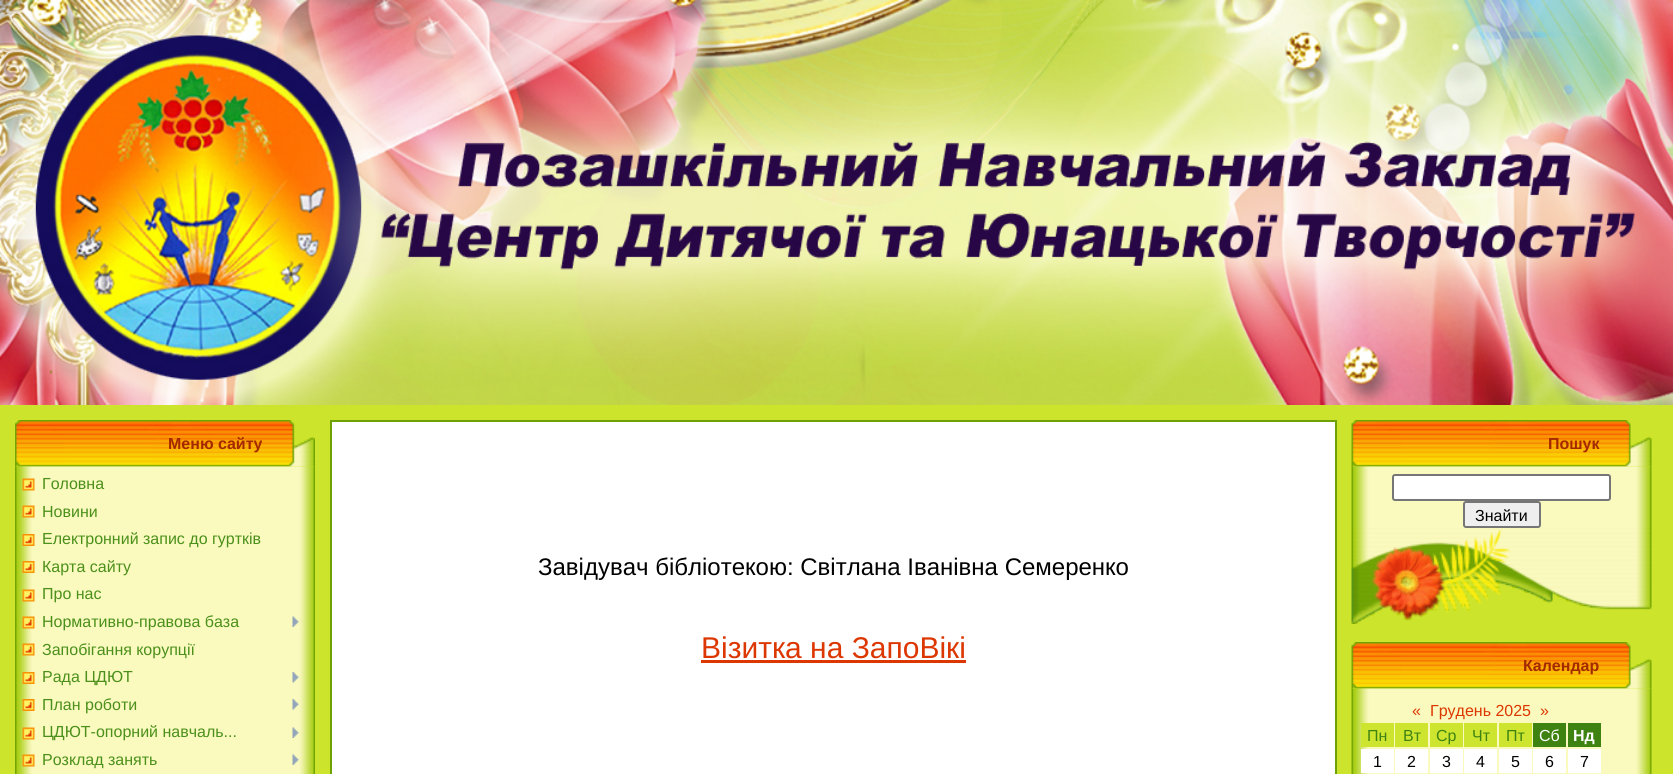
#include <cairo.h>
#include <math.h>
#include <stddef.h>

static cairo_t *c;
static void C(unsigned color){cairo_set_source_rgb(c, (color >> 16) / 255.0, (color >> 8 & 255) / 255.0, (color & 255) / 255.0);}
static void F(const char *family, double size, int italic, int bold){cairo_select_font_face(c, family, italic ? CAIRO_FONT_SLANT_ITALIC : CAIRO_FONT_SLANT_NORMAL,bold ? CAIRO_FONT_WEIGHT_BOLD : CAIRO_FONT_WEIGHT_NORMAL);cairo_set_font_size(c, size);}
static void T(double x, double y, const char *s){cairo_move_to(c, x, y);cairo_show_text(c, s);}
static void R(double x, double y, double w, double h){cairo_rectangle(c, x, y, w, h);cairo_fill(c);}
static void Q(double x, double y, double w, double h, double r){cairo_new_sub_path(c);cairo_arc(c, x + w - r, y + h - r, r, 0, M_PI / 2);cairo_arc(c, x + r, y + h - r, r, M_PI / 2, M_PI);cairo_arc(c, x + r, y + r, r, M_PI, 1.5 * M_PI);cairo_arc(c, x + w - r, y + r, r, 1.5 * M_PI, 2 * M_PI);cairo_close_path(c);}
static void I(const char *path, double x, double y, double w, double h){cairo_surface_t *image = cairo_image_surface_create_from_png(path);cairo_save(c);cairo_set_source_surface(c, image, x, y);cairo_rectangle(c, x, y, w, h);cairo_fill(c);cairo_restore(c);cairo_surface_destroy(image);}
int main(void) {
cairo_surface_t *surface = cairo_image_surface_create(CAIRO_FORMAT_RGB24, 1673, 774);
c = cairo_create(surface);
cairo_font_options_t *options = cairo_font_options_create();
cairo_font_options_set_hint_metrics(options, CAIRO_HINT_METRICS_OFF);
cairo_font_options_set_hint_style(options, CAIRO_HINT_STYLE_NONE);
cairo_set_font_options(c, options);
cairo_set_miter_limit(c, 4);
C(0xcce42c);
cairo_paint(c);
I("1.png",0,0,1673,405);
I("2.png",15,420,300,47);
F("Liberation Sans",16,0,1);
C(0xa42900);
T(168,449,"Меню сайту");
I("3.png",15,466,300,308);
I("4.png",22,478,13,13);
F("Liberation Sans",16,0,0);
C(0x4b901a);
T(42,489,"Головна");
I("4.png",22,505,13,13);
T(42,517,"Новини");
I("5.png",22,534,13,12);
T(42,544,"Електронний запис до гуртків");
I("5.png",22,561,13,12);
T(42,572,"Карта сайту");
I("4.png",22,589,13,13);
T(42,599,"Про нас");
I("4.png",22,616,13,13);
T(42,627,"Нормативно-правова база");
I("6.png",292,616,7,11);
I("4.png",22,643,13,13);
T(42,655,"Запобігання корупції");
I("5.png",22,672,13,12);
T(42,682,"Рада ЦДЮТ");
I("7.png",292,672,7,11);
I("5.png",22,699,13,12);
T(42,710,"План роботи");
I("7.png",292,699,7,11);
I("4.png",22,727,13,13);
T(42,737,"ЦДЮТ-опорний навчаль...");
I("6.png",292,727,7,11);
I("4.png",22,754,13,13);
T(42,765,"Розклад занять");
I("6.png",292,754,7,11);
cairo_rectangle(c,331,421,1005,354);
C(0x6da104);
cairo_stroke(c);
C(0xffffff);
R(332,422,1003,352);
F("Liberation Sans",24,0,0);
C(0x000000);
T(538,575,"Завідувач бібліотекою: Світлана Іванівна Семеренко");
F("Liberation Sans",30,0,0);
C(0xdc3700);
T(701,658,"Візитка на ЗапоВікі");
R(701,660,265,3);
I("8.png",1351,420,301,47);
F("Liberation Sans",16,0,1);
C(0xa42900);
T(1548,449,"Пошук");
I("9.png",1351,466,301,62);
C(0xffffff);
Q(1393,475,217,25,2);
cairo_fill_preserve(c);
C(0x767676);
cairo_stroke(c);
C(0xefefef);
Q(1464,502,76,25,2);
cairo_fill_preserve(c);
C(0x767676);
cairo_stroke(c);
F("Liberation Sans",16,0,0);
C(0x000000);
T(1475,521,"Знайти");
I("10.png",1351,528,301,96);
I("8.png",1351,642,301,47);
F("Liberation Sans",16,0,1);
C(0xa42900);
T(1523,671,"Календар");
I("11.png",1351,688,301,86);
F("Liberation Sans",16,0,0);
C(0xdc3700);
T(1412,716,"«");
T(1430,716,"Грудень 2025");
T(1540,716,"»");
C(0xcee530);
R(1361,723,33,24);
C(0x3e8311);
T(1367,741,"Пн");
C(0xcee530);
R(1395,723,33,24);
C(0x3e8311);
T(1403,741,"Вт");
C(0xcee530);
R(1430,723,33,24);
C(0x3e8311);
T(1436,741,"Ср");
C(0xcee530);
R(1464,723,33,24);
C(0x3e8311);
T(1472,741,"Чт");
C(0xcee530);
R(1499,723,33,24);
C(0x3e8311);
T(1506,741,"Пт");
R(1533,723,33,24);
C(0xffffff);
T(1539,741,"Сб");
C(0x3e8311);
R(1568,723,33,24);
F("Liberation Sans",16,0,1);
C(0xffffff);
T(1573,741,"Нд");
R(1361,749,33,24);
F("Liberation Sans",16,0,0);
C(0x000000);
T(1373,767,"1");
C(0xffffff);
R(1395,749,33,24);
C(0x000000);
T(1407,767,"2");
C(0xffffff);
R(1430,749,33,24);
C(0x000000);
T(1442,767,"3");
C(0xffffff);
R(1464,749,33,24);
C(0x000000);
T(1476,767,"4");
C(0xffffff);
R(1499,749,33,24);
C(0x000000);
T(1511,767,"5");
C(0xffffff);
R(1533,749,33,24);
C(0x000000);
T(1545,767,"6");
C(0xffffff);
R(1568,749,33,24);
C(0x000000);
T(1580,767,"7");
cairo_surface_write_to_png(surface, "o.png");
cairo_font_options_destroy(options);
cairo_destroy(c);
cairo_surface_destroy(surface);
return 0;
}
